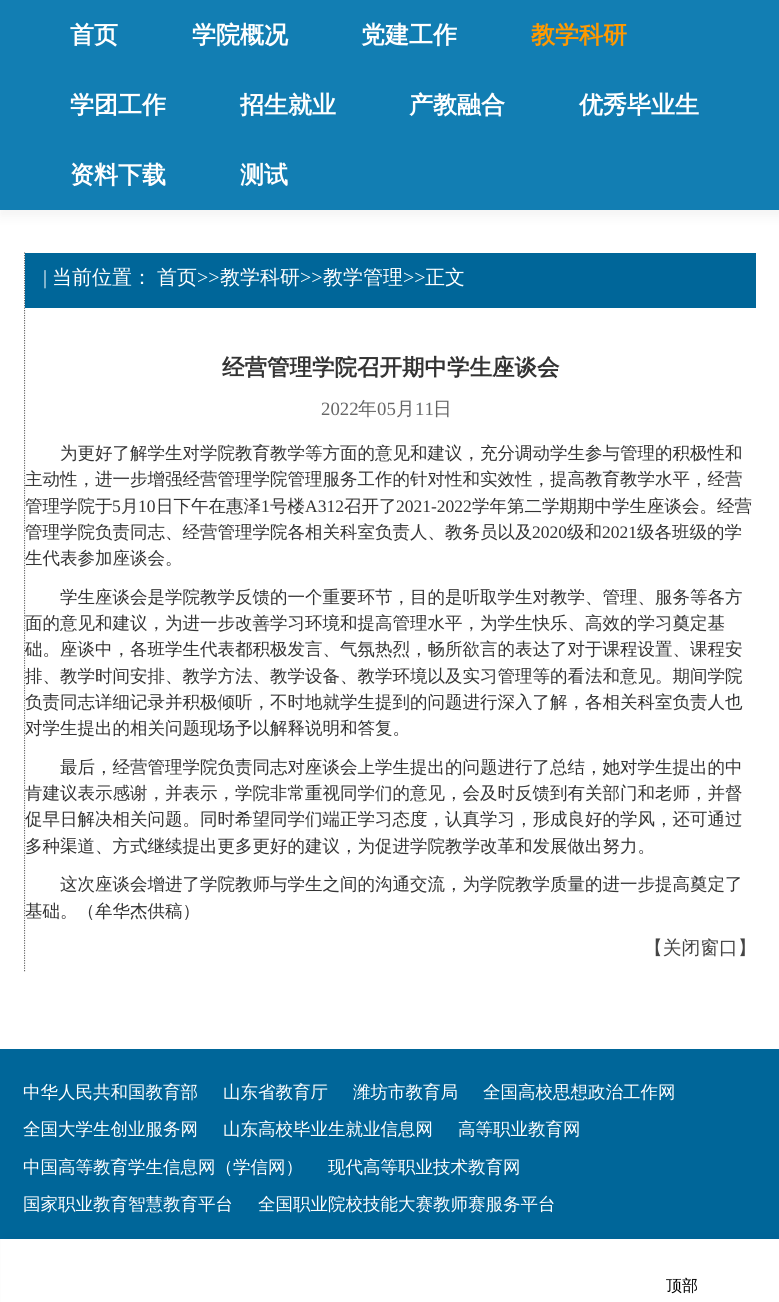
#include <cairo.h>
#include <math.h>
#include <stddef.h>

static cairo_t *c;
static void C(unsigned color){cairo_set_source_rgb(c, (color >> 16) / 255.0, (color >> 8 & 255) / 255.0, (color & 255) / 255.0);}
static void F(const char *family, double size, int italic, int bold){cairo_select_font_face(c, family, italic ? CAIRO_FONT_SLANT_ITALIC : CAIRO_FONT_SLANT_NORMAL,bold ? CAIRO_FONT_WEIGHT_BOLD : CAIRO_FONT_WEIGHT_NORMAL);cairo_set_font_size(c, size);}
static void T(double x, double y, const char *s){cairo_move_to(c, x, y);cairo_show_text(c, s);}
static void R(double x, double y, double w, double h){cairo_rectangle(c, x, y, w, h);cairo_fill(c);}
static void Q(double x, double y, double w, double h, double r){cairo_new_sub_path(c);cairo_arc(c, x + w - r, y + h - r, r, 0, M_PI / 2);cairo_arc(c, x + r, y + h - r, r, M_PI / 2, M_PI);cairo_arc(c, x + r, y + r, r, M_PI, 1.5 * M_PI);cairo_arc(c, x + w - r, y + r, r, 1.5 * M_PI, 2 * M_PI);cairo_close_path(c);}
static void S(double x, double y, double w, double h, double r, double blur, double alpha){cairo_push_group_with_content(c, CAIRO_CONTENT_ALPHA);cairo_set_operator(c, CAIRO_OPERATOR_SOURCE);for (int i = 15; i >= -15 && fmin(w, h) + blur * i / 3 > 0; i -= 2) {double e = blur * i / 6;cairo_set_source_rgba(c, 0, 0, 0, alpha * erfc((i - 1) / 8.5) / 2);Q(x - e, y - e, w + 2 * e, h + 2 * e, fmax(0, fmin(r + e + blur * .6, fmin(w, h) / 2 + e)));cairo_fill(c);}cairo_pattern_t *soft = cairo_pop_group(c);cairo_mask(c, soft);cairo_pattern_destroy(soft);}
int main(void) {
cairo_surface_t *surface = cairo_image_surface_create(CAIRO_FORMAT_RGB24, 779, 1302);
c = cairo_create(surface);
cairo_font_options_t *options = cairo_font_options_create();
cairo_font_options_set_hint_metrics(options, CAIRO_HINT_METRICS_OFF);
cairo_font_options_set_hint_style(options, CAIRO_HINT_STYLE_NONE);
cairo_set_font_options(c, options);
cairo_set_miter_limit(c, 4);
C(0xffffff);
cairo_paint(c);
C(0x000000);
S(0,6,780,210,0,6,.05);
C(0x127eb3);
R(0,0,779,210);
F("WenQuanYi Zen Hei",24,0,1);
C(0xffffff);
T(70,43,"首页");
T(192,43,"学院概况");
T(361,43,"党建工作");
C(0xff9900);
T(531,43,"教学科研");
C(0xffffff);
T(70,113,"学团工作");
T(240,113,"招生就业");
T(409,113,"产教融合");
T(579,113,"优秀毕业生");
T(70,183,"资料下载");
T(240,183,"测试");
cairo_save(c);
cairo_rectangle(c,24,228,732,776);
cairo_clip(c);
cairo_new_path(c);
cairo_move_to(c,24.5,252.5);
cairo_line_to(c,24.5,972.5);
C(0x666666);
cairo_set_line_width(c,1.2);
cairo_set_dash(c,(double[]){1.25,1.25},2,0);
cairo_stroke(c);
cairo_restore(c);
C(0x006699);
R(25,253,731,55);
F("Liberation Serif",20,0,0);
C(0xffffff);
T(43,284,"|");
F("WenQuanYi Zen Hei Medium",20,0,0);
T(52,284,"当前位置：");
T(157,284,"首页");
F("Liberation Serif",20,0,0);
T(197,284,">>");
F("WenQuanYi Zen Hei Medium",20,0,0);
T(220,284,"教学科研");
F("Liberation Serif",20,0,0);
T(300,284,">>");
F("WenQuanYi Zen Hei Medium",20,0,0);
T(323,284,"教学管理");
F("Liberation Serif",20,0,0);
T(403,284,">>");
F("WenQuanYi Zen Hei Medium",20,0,0);
T(425,284,"正文");
F("WenQuanYi Zen Hei",22.5,0,1);
C(0x333333);
T(222,375,"经营管理学院召开期中学生座谈会");
F("Liberation Serif",18.75,0,0);
C(0x666666);
T(321,415,"2022");
F("WenQuanYi Zen Hei Medium",18.75,0,0);
T(358,415,"年");
F("Liberation Serif",18.75,0,0);
T(377,415,"05");
F("WenQuanYi Zen Hei Medium",18.75,0,0);
T(396,415,"月");
F("Liberation Serif",18.75,0,0);
T(415,415,"11");
F("WenQuanYi Zen Hei Medium",18.75,0,0);
T(433,415,"日");
F("WenQuanYi Zen Hei Medium",17.5,0,0);
C(0x333333);
T(60,459,"为更好了解学生对学院教育教学等方面的意见和建议，充分调动学生参与管理的积极性和");
T(25,485,"主动性，进一步增强经营管理学院管理服务工作的针对性和实效性，提高教育教学水平，经营");
T(25,512,"管理学院于");
F("Liberation Serif",17.5,0,0);
T(112,512,"5");
F("WenQuanYi Zen Hei Medium",17.5,0,0);
T(121,512,"月");
F("Liberation Serif",17.5,0,0);
T(138,512,"10");
F("WenQuanYi Zen Hei Medium",17.5,0,0);
T(156,512,"日下午在惠泽");
F("Liberation Serif",17.5,0,0);
T(261,512,"1");
F("WenQuanYi Zen Hei Medium",17.5,0,0);
T(270,512,"号楼");
F("Liberation Serif",17.5,0,0);
T(305,512,"A312");
F("WenQuanYi Zen Hei Medium",17.5,0,0);
T(344,512,"召开了");
F("Liberation Serif",17.5,0,0);
T(396,512,"2021-2022");
F("WenQuanYi Zen Hei Medium",17.5,0,0);
T(472,512,"学年第二学期期中学生座谈会。经营");
T(25,538,"管理学院负责同志、经营管理学院各相关科室负责人、教务员以及");
F("Liberation Serif",17.5,0,0);
T(532,538,"2020");
F("WenQuanYi Zen Hei Medium",17.5,0,0);
T(567,538,"级和");
F("Liberation Serif",17.5,0,0);
T(602,538,"2021");
F("WenQuanYi Zen Hei Medium",17.5,0,0);
T(637,538,"级各班级的学");
T(25,564,"生代表参加座谈会。");
T(60,603,"学生座谈会是学院教学反馈的一个重要环节，目的是听取学生对教学、管理、服务等各方");
T(25,629,"面的意见和建议，为进一步改善学习环境和提高管理水平，为学生快乐、高效的学习奠定基");
T(25,655,"础。座谈中，各班学生代表都积极发言、气氛热烈，畅所欲言的表达了对于课程设置、课程安");
T(25,682,"排、教学时间安排、教学方法、教学设备、教学环境以及实习管理等的看法和意见。期间学院");
T(25,708,"负责同志详细记录并积极倾听，不时地就学生提到的问题进行深入了解，各相关科室负责人也");
T(25,734,"对学生提出的相关问题现场予以解释说明和答复。");
T(60,773,"最后，经营管理学院负责同志对座谈会上学生提出的问题进行了总结，她对学生提出的中");
T(25,799,"肯建议表示感谢，并表示，学院非常重视同学们的意见，会及时反馈到有关部门和老师，并督");
T(25,825,"促早日解决相关问题。同时希望同学们端正学习态度，认真学习，形成良好的学风，还可通过");
T(25,852,"多种渠道、方式继续提出更多更好的建议，为促进学院教学改革和发展做出努力。");
T(60,890,"这次座谈会增进了学院教师与学生之间的沟通交流，为学院教学质量的进一步提高奠定了");
T(25,917,"基础。（牟华杰供稿）");
F("WenQuanYi Zen Hei Medium",18.75,0,0);
C(0x444444);
T(644,954,"【关闭窗口】");
C(0x006699);
R(0,1049,779,190);
F("WenQuanYi Zen Hei Medium",17.5,0,0);
C(0xffffff);
T(23,1098,"中华人民共和国教育部");
T(223,1098,"山东省教育厅");
T(353,1098,"潍坊市教育局");
T(483,1098,"全国高校思想政治工作网");
T(23,1135,"全国大学生创业服务网");
T(223,1135,"山东高校毕业生就业信息网");
T(458,1135,"高等职业教育网");
T(23,1173,"中国高等教育学生信息网（学信网）");
T(328,1173,"现代高等职业技术教育网");
T(23,1210,"国家职业教育智慧教育平台");
T(258,1210,"全国职业院校技能大赛教师赛服务平台");
C(0x000000);
S(6,1239,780,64,0,6,.05);
C(0xffffff);
R(1,1239,778,63);
F("WenQuanYi Zen Hei Medium",16,0,0);
C(0x000000);
T(666,1291,"顶部");
cairo_surface_write_to_png(surface, "o.png");
cairo_font_options_destroy(options);
cairo_destroy(c);
cairo_surface_destroy(surface);
return 0;
}
